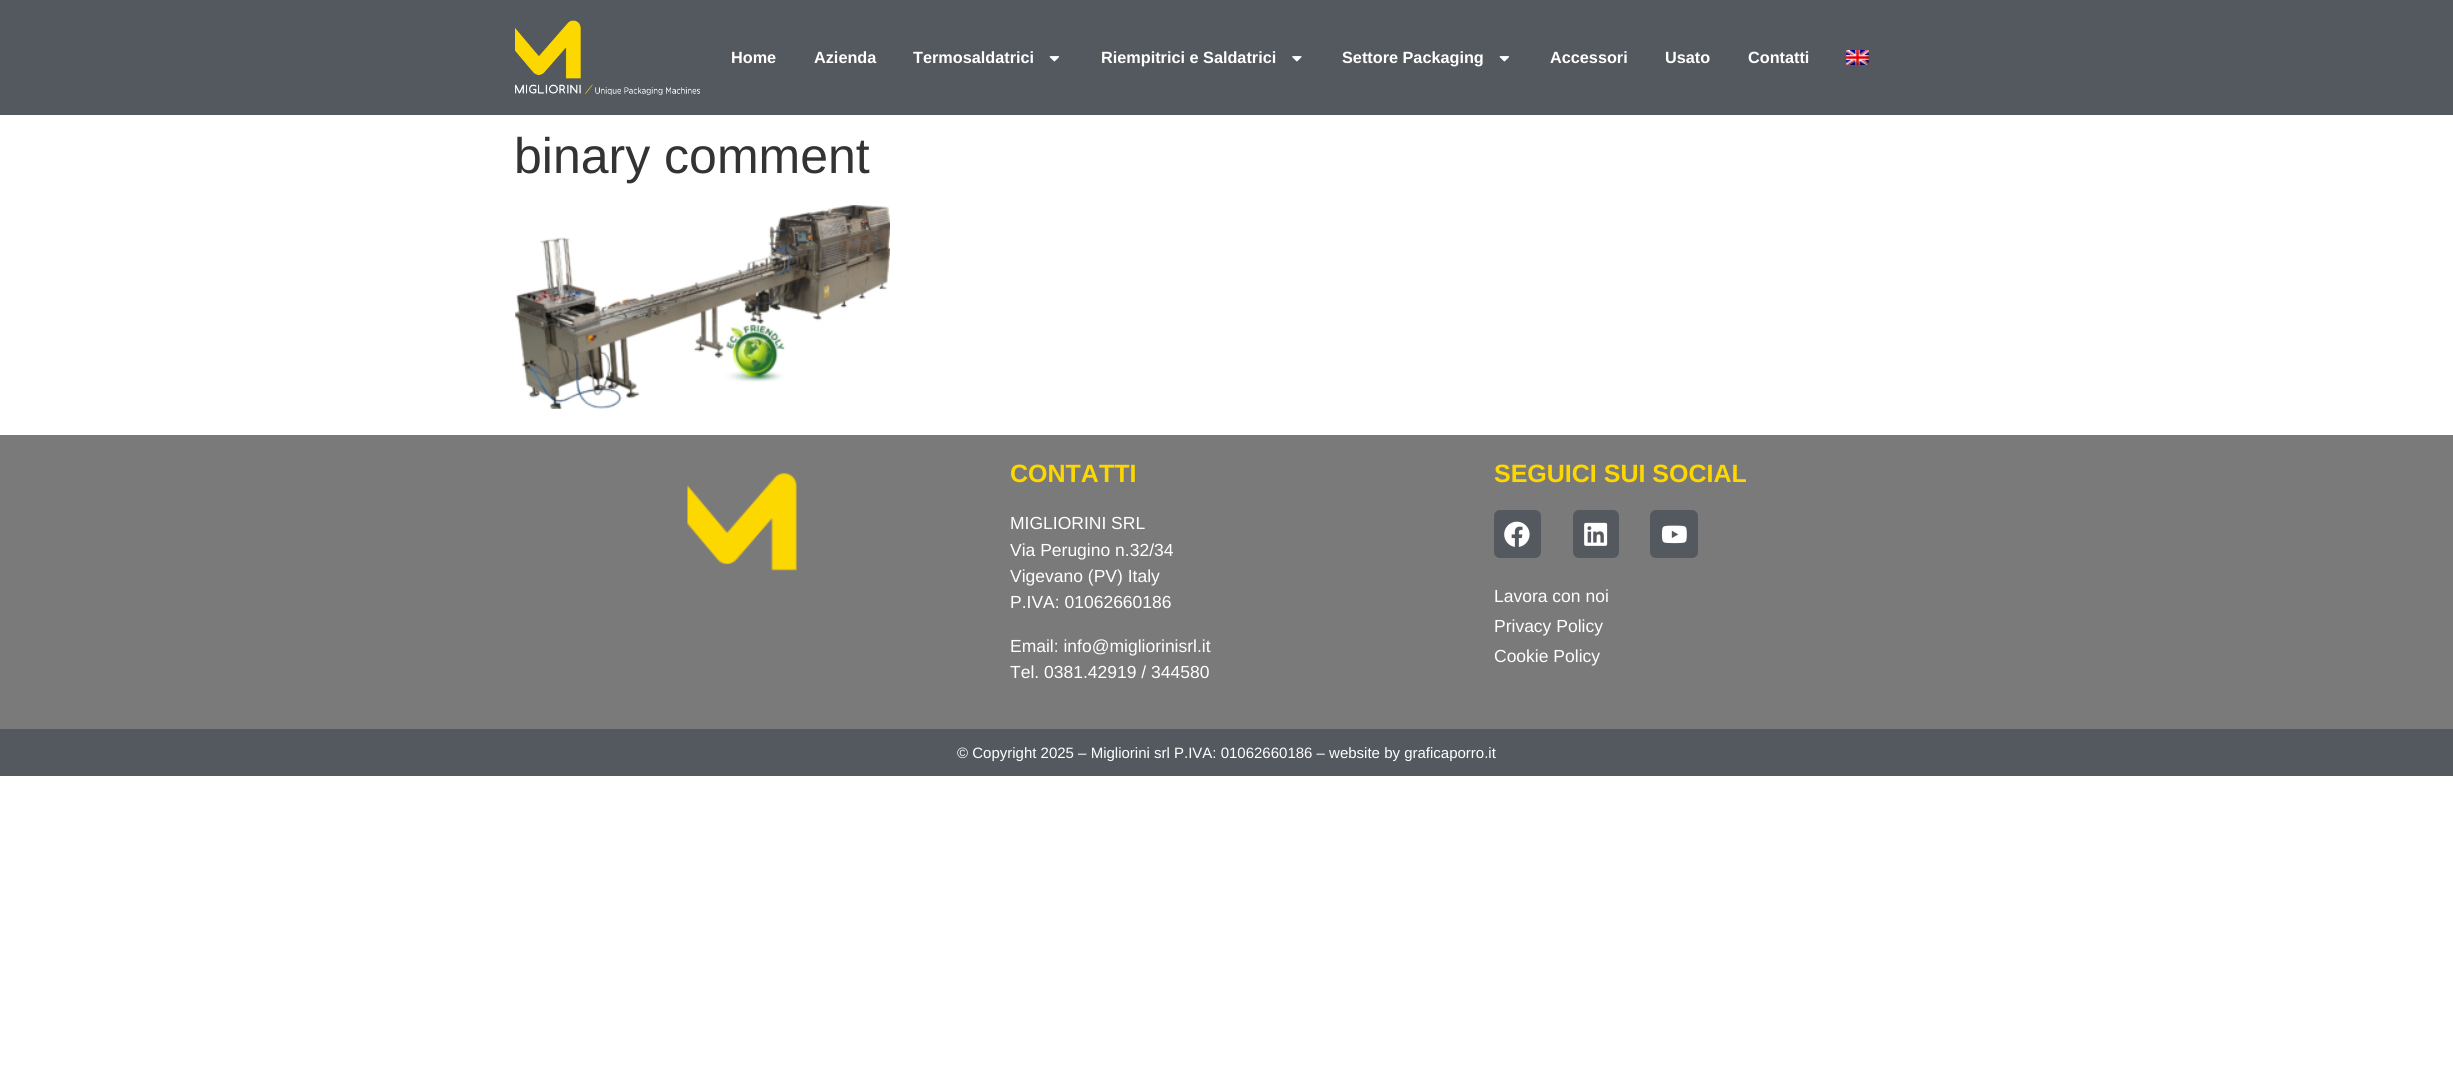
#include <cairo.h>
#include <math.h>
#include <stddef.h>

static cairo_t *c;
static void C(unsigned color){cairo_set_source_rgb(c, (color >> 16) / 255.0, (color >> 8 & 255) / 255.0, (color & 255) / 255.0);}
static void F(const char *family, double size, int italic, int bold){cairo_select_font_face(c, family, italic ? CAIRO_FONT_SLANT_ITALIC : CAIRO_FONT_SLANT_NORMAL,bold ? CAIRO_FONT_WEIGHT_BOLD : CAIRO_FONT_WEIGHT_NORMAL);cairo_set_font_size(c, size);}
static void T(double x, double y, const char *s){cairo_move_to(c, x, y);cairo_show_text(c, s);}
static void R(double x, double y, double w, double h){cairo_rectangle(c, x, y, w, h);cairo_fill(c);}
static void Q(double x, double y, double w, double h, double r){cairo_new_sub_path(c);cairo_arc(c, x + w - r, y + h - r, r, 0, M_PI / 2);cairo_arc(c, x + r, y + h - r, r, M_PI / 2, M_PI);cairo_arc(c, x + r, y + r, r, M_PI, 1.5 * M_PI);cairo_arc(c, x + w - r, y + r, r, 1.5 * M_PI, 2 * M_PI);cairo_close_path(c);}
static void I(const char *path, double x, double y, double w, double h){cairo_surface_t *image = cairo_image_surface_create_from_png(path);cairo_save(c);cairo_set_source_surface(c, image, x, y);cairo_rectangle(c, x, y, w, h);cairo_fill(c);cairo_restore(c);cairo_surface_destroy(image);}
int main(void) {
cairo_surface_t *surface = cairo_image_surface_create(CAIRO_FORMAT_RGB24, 2453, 1084);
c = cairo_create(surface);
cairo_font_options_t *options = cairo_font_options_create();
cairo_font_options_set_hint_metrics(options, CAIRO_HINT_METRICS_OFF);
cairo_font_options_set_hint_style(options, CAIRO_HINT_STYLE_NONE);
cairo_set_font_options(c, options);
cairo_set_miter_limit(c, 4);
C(0xffffff);
cairo_paint(c);
C(0x54595f);
R(0,0,2453,115);
I("1.png",515,20,185,75);
F("Liberation Sans",16.25,0,1);
C(0xffffff);
T(731,63,"Home");
T(814,63,"Azienda");
T(913,63,"Termosaldatrici");
I("2.png",1049,56,11,6);
T(1101,63,"Riempitrici e Saldatrici");
I("3.png",1292,56,10,6);
T(1342,63,"Settore Packaging");
I("2.png",1499,56,11,6);
T(1550,63,"Accessori");
T(1665,63,"Usato");
T(1748,63,"Contatti");
I("4.png",1846,50,23,15);
F("Liberation Sans",50,0,0);
C(0x333333);
T(514,173,"binary comment");
I("5.png",515,205,375,204);
C(0x7a7a7a);
R(0,435,2453,294);
I("6.png",687,473,110,98);
F("Liberation Sans",25,0,1);
C(0xfdd700);
T(1010,482,"CONTATTI");
F("Liberation Sans",17.5,0,0);
C(0xffffff);
T(1010,529,"MIGLIORINI SRL");
T(1010,556,"Via Perugino n.32/34");
T(1010,582,"Vigevano (PV) Italy");
T(1010,608,"P.IVA: 01062660186");
T(1010,652,"Email: info@migliorinisrl.it");
T(1010,678,"Tel. 0381.42919 / 344580");
F("Liberation Sans",25,0,1);
C(0xfdd700);
T(1494,482,"SEGUICI SUI SOCIAL");
C(0x54595f);
Q(1494,510,47,48,6);
cairo_fill(c);
I("7.png",1504,521,26,26);
Q(1573,510,46,48,6);
cairo_fill(c);
I("8.png",1584,522,24,24);
Q(1650,510,48,48,6);
cairo_fill(c);
I("9.png",1661,525,26,19);
F("Liberation Sans",17.5,0,0);
C(0xffffff);
T(1494,602,"Lavora con noi");
T(1494,632,"Privacy Policy");
T(1494,662,"Cookie Policy");
C(0x54595f);
R(0,729,2453,47);
F("Liberation Sans",15,0,0);
C(0xffffff);
T(957,758,"© Copyright 2025 – Migliorini srl P.IVA: 01062660186 – website by graficaporro.it");
cairo_surface_write_to_png(surface, "o.png");
cairo_font_options_destroy(options);
cairo_destroy(c);
cairo_surface_destroy(surface);
return 0;
}
